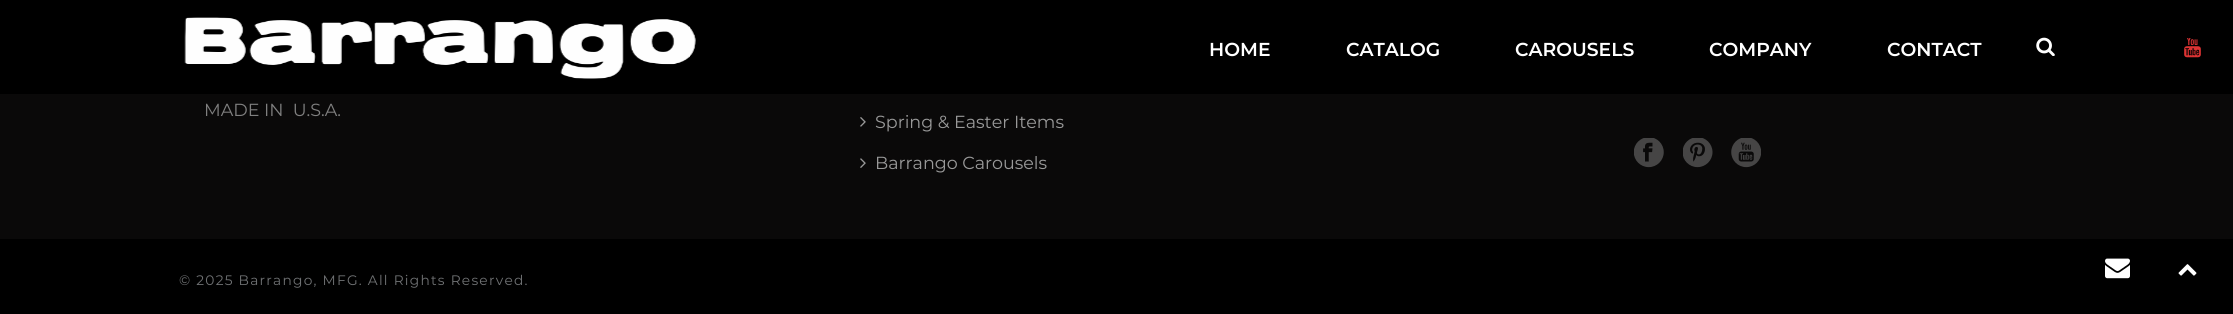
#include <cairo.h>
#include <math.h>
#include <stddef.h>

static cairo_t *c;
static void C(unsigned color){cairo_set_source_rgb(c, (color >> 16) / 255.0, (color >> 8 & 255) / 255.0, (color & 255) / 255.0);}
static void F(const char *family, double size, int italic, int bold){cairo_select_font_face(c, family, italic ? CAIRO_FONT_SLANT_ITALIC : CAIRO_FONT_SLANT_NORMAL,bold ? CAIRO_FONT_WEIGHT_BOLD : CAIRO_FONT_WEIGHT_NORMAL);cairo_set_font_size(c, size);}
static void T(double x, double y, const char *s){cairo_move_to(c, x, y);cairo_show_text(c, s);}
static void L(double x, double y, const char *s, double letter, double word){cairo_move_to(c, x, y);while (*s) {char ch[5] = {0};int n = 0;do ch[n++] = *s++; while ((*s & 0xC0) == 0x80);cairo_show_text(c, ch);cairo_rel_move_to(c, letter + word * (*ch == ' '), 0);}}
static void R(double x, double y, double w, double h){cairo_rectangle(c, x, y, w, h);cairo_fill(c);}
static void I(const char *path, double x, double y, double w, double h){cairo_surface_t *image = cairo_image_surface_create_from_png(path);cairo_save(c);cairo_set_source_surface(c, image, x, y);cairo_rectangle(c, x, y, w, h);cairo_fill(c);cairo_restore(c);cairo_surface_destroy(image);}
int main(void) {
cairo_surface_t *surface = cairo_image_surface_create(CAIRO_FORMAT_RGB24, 2233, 314);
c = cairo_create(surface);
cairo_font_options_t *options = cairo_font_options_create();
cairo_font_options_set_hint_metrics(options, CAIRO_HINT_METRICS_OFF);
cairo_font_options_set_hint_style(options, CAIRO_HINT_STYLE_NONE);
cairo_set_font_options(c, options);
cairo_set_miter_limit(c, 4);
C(0x0a0909);
cairo_paint(c);
C(0x000000);
R(0,0,2233,94);
I("1.png",184,17,512,62);
F("Montserrat SemiBold",18.75,0,0);
C(0xffffff);
T(1209,56,"HOME");
T(1346,56,"CATALOG");
T(1515,56,"CAROUSELS");
T(1709,56,"COMPANY");
T(1887,56,"CONTACT");
I("2.png",2036,37,19,19);
I("3.png",2184,38,17,20);
F("Montserrat",17.5,0,0);
C(0x808080);
T(204,116,"MADE IN  U.S.A.");
I("4.png",860,117,6,10);
C(0x999999);
T(875,128,"Spring & Easter Items");
I("5.png",860,158,6,10);
T(875,169,"Barrango Carousels");
I("6.png",1634,138,30,30);
I("7.png",1683,138,30,30);
I("8.png",1731,138,30,30);
C(0x000000);
R(0,239,2233,75);
F("Montserrat",13.75,0,0);
C(0x707274);
L(179,285,"© 2025 Barrango, MFG. All Rights Reserved.",1.25,0);
I("9.png",2105,258,25,21);
I("10.png",2178,264,19,12);
cairo_surface_write_to_png(surface, "o.png");
cairo_font_options_destroy(options);
cairo_destroy(c);
cairo_surface_destroy(surface);
return 0;
}
